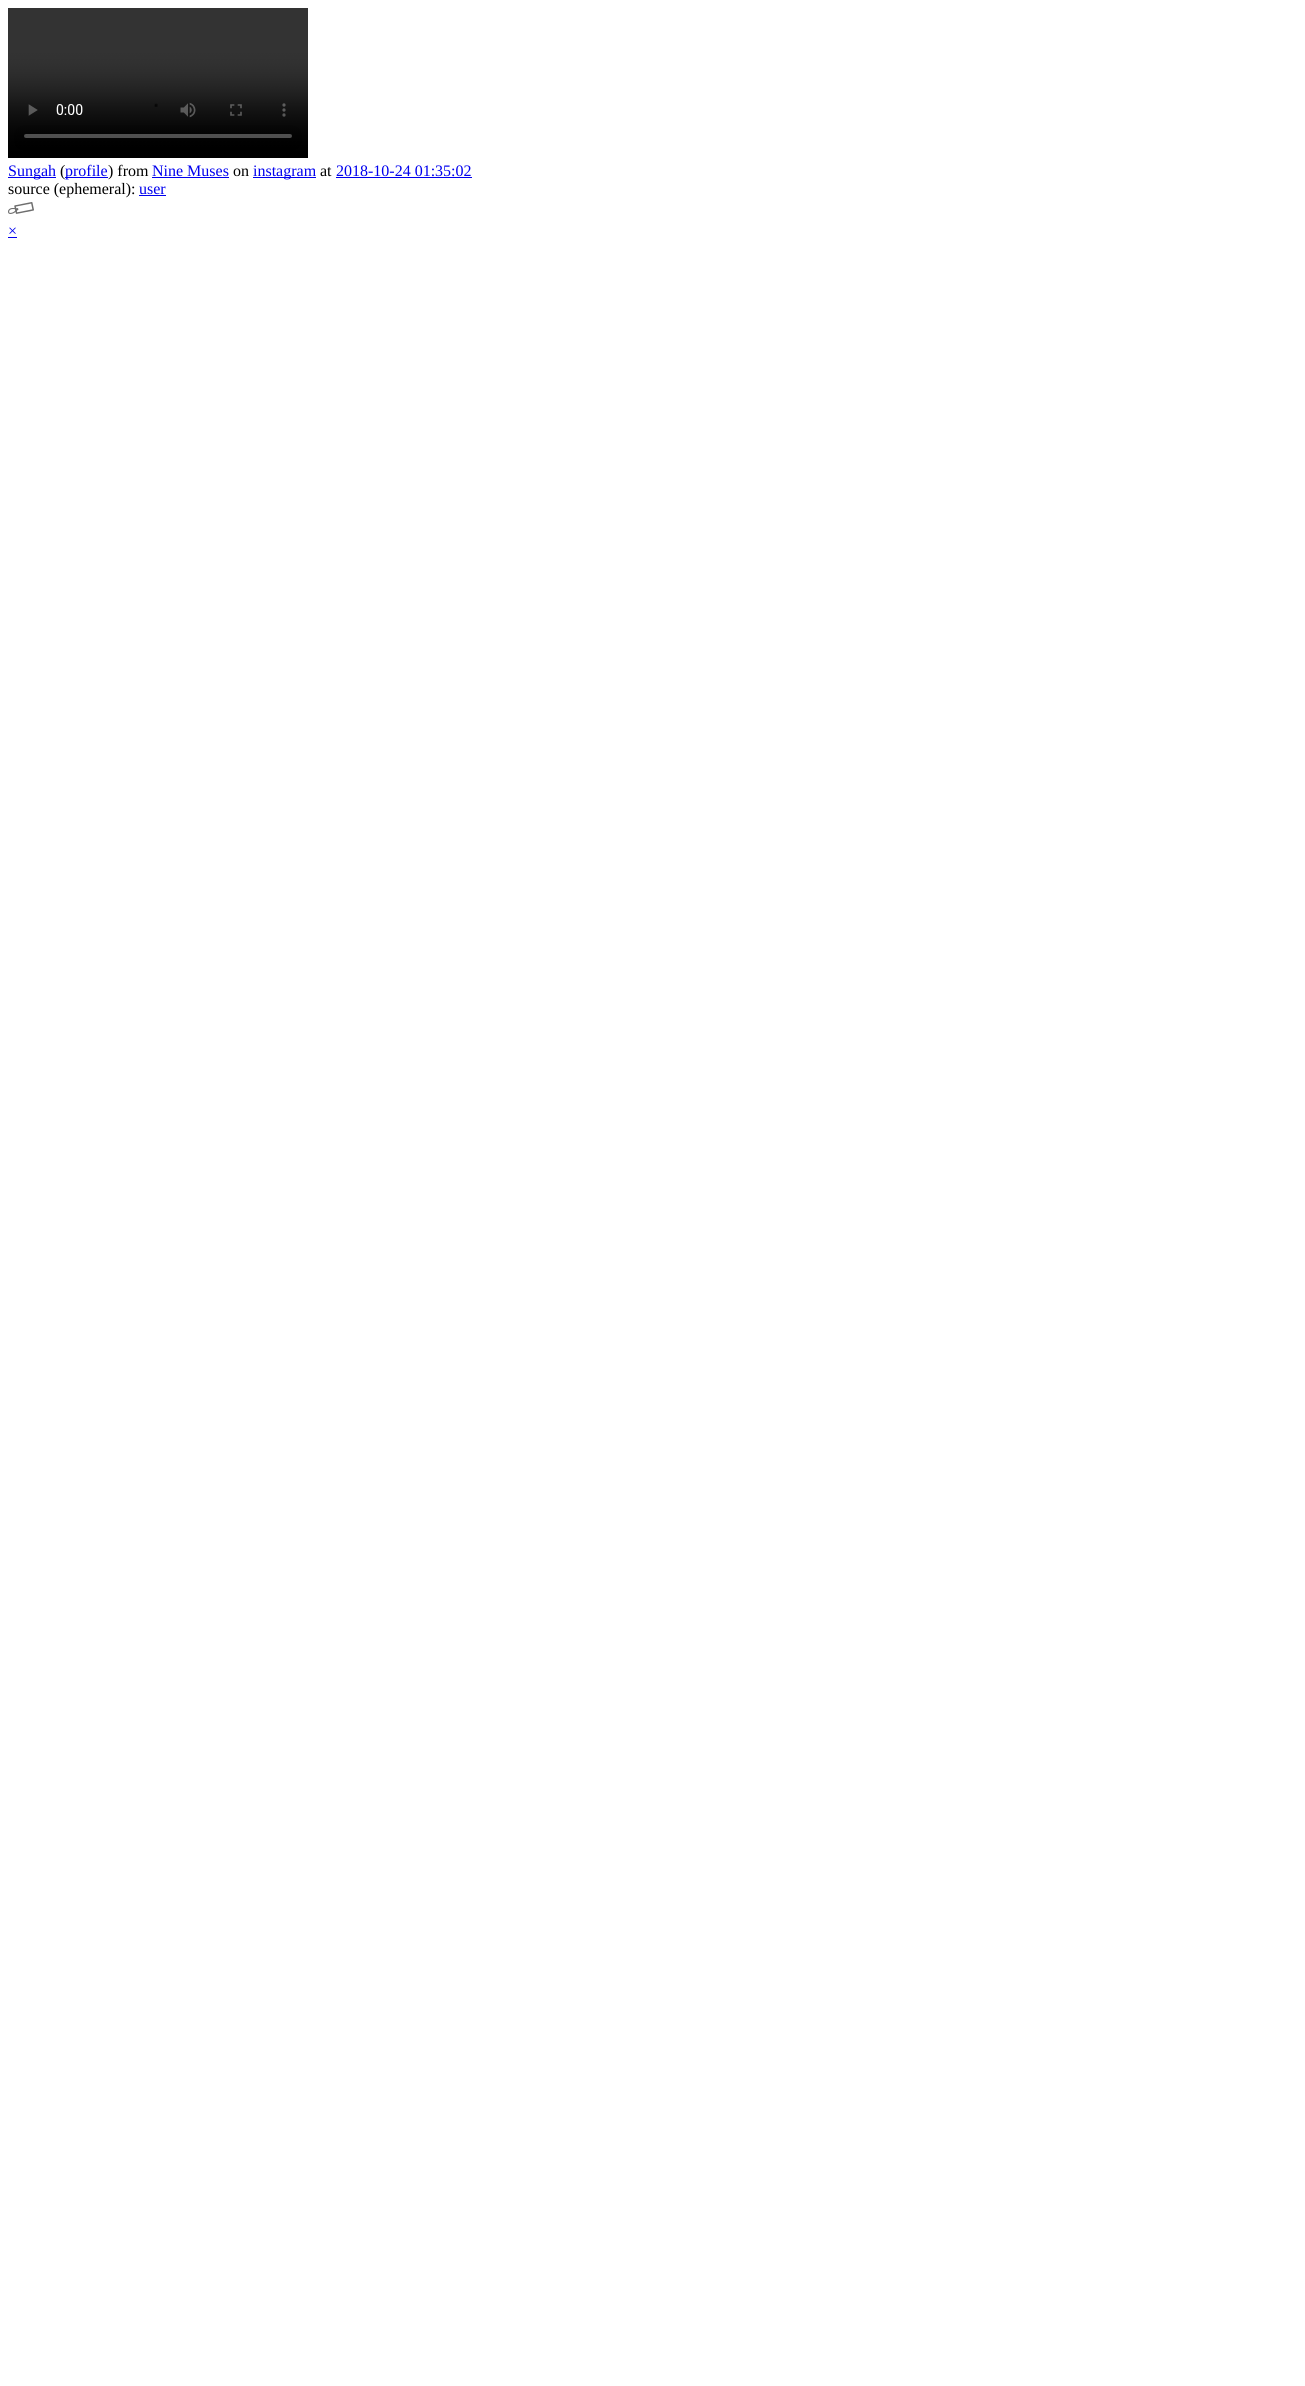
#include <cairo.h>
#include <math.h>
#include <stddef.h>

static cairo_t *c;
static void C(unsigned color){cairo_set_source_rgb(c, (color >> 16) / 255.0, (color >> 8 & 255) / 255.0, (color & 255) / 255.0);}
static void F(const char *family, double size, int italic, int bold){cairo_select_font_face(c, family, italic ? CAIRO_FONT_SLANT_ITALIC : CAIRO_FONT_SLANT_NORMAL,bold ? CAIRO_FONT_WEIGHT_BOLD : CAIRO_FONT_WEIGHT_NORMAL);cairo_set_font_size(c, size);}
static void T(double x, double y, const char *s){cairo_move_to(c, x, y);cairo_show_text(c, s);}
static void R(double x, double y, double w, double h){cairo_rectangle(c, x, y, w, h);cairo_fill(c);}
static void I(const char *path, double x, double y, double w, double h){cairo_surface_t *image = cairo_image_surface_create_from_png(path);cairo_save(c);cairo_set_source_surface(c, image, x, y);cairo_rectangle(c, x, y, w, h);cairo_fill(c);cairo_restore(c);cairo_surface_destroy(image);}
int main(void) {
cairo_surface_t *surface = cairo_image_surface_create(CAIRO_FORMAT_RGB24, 1305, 2386);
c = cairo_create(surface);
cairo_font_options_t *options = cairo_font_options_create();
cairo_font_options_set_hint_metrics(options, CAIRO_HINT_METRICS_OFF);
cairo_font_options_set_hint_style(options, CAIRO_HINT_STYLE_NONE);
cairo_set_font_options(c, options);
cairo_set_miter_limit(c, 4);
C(0xffffff);
cairo_paint(c);
I("1.png",8,8,300,150);
C(0x0000ee);
R(8,177,48,1);
F("Liberation Serif",16,0,0);
T(8,176,"Sungah");
C(0x000000);
T(60,176,"(");
C(0x0000ee);
R(65,177,43,1);
T(65,176,"profile");
C(0x000000);
T(108,176,") from");
C(0x0000ee);
T(152,176,"Nine Muses");
R(152,177,77,1);
C(0x000000);
T(233,176,"on");
C(0x0000ee);
R(253,177,63,1);
T(253,176,"instagram");
C(0x000000);
T(320,176,"at");
C(0x0000ee);
T(336,176,"2018-10-24 01:35:02");
R(336,177,136,1);
C(0x000000);
T(8,194,"source (ephemeral):");
C(0x0000ee);
T(139,194,"user");
R(139,195,27,1);
I("2.png",8,202,26,12);
T(8,236,"×");
R(8,237,9,1);
cairo_surface_write_to_png(surface, "o.png");
cairo_font_options_destroy(options);
cairo_destroy(c);
cairo_surface_destroy(surface);
return 0;
}
